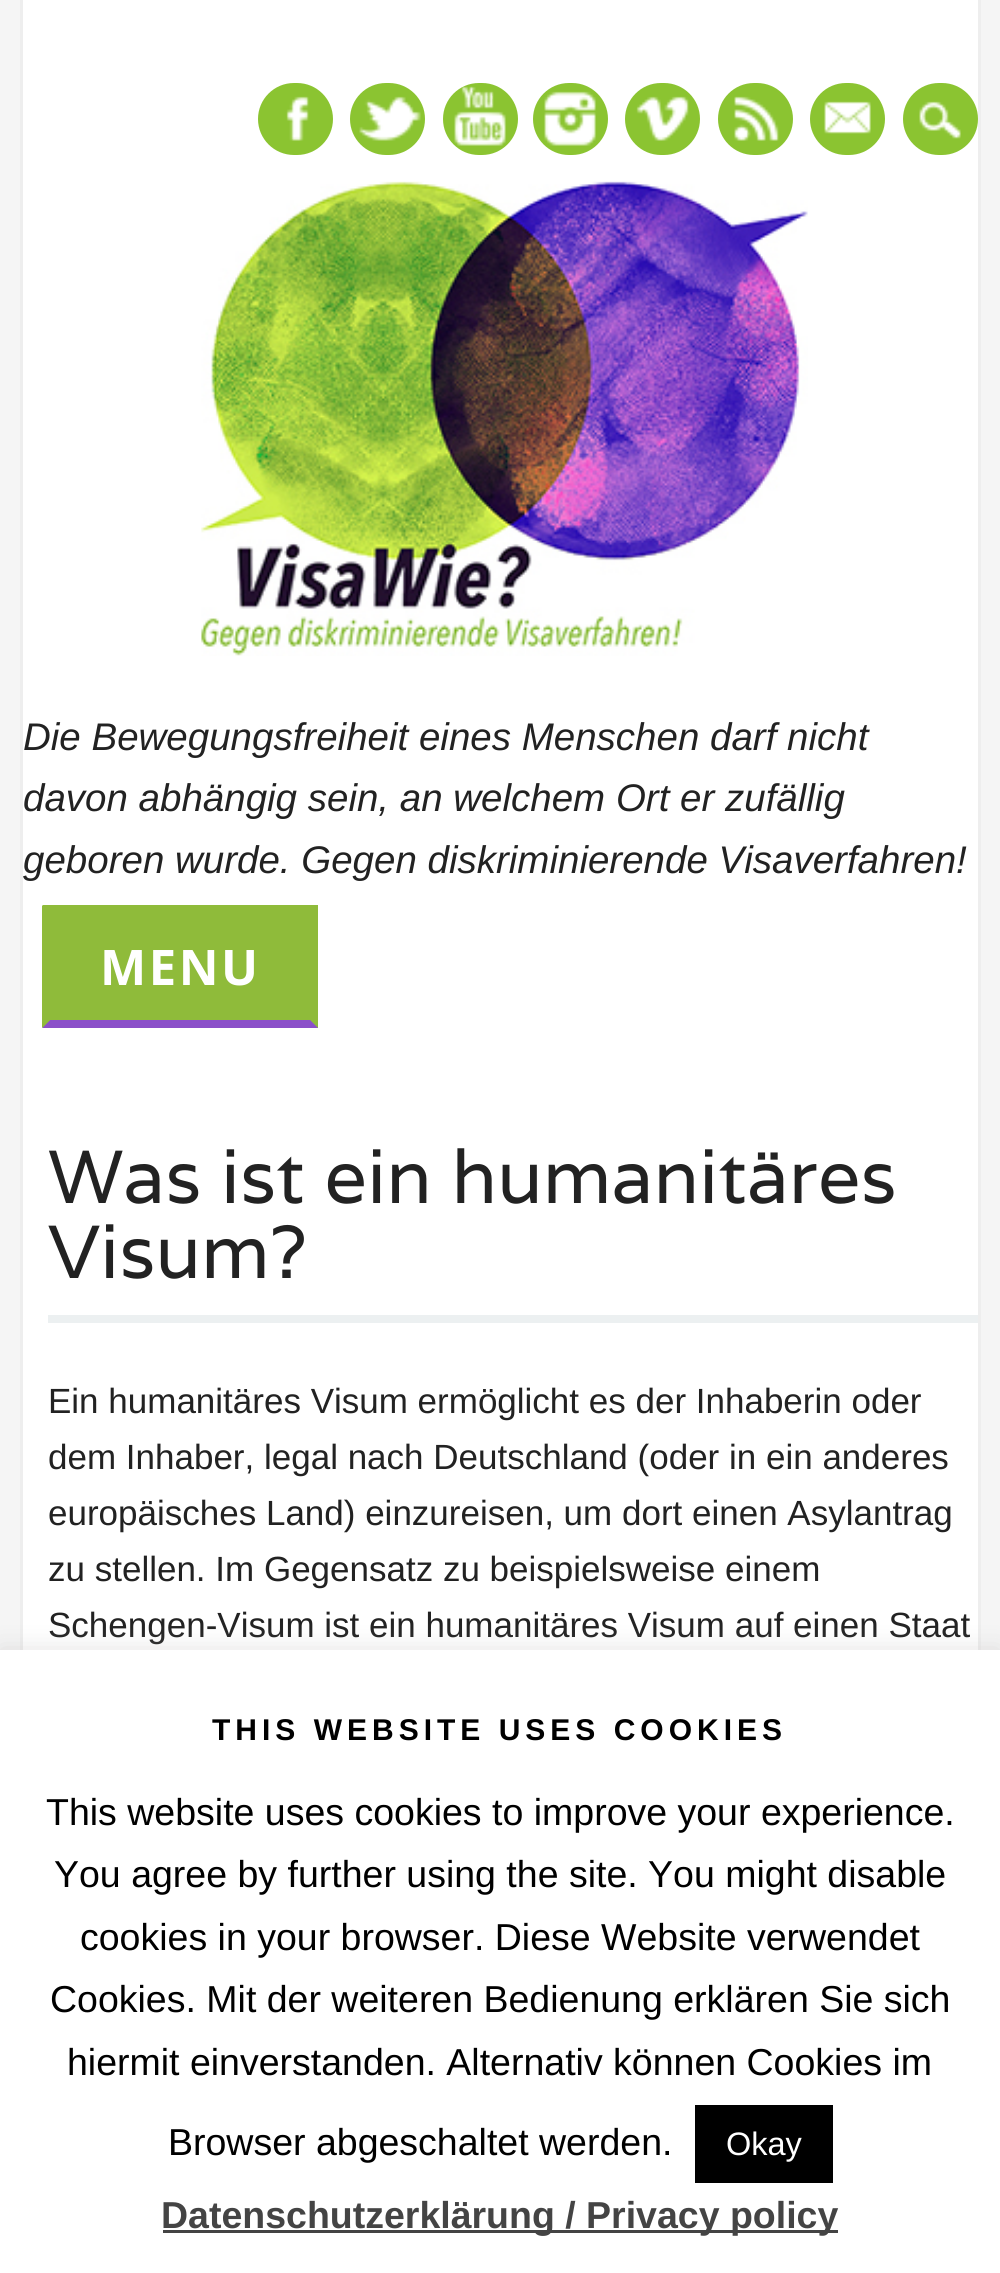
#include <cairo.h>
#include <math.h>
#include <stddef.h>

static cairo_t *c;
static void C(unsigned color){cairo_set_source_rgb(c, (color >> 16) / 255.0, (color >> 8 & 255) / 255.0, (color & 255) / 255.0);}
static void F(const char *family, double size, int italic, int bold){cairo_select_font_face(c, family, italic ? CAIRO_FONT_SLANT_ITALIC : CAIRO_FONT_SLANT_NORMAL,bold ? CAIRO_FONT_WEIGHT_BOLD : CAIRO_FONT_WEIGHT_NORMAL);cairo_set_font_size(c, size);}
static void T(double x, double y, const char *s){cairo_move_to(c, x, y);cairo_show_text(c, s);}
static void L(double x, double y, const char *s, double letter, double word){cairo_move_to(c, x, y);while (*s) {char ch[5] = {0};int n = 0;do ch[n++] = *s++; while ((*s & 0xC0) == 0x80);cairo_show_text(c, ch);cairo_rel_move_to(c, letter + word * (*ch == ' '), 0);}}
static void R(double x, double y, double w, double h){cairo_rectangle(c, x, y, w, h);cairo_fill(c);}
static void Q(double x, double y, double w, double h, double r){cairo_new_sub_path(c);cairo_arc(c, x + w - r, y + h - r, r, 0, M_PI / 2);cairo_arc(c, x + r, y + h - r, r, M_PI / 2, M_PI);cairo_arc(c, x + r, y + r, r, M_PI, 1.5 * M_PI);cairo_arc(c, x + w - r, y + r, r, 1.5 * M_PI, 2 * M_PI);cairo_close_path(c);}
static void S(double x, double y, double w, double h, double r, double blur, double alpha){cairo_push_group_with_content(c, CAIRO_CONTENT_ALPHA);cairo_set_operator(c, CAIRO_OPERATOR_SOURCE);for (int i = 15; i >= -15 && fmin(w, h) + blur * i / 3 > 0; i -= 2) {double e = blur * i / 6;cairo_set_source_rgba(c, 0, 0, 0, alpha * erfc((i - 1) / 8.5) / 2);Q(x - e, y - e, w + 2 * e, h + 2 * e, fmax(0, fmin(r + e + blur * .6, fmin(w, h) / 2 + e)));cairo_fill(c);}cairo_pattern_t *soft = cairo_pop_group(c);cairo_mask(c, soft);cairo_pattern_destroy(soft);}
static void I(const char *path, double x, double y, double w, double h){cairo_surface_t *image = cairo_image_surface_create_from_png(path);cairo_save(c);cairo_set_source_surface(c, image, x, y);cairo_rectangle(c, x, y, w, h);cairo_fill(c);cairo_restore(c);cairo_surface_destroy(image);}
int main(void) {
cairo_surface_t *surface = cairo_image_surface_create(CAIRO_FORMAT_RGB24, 1000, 2273);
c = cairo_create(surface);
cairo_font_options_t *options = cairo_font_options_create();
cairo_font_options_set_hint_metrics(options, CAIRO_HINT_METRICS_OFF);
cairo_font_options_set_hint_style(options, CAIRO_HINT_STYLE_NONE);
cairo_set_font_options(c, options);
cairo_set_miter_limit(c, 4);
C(0xf5f5f5);
cairo_paint(c);
C(0xffffff);
R(23,0,955,1650);
C(0xeeeeee);
R(978,0,3,1650);
R(20,0,3,1650);
C(0x8bc431);
Q(258,83,75,72,36);
cairo_fill(c);
I("1.png",286,96,23,45);
Q(350,83,75,72,36);
cairo_fill(c);
I("2.png",359,96,62,45);
Q(443,83,75,72,36);
cairo_fill(c);
I("3.png",454,86,52,60);
Q(533,83,75,72,36);
cairo_fill(c);
I("4.png",544,91,52,55);
Q(625,83,75,72,36);
cairo_fill(c);
I("5.png",636,96,53,45);
Q(718,83,75,72,36);
cairo_fill(c);
I("6.png",734,96,45,45);
Q(810,83,75,72,36);
cairo_fill(c);
I("7.png",824,101,47,33);
Q(903,83,75,72,36);
cairo_fill(c);
I("8.png",919,101,42,38);
I("9.png",201,181,607,475);
F("Liberation Sans",38.5,1,0);
C(0x222222);
T(23,750,"Die Bewegungsfreiheit eines Menschen darf nicht");
T(23,811,"davon abhängig sein, an welchem Ort er zufällig");
T(23,873,"geboren wurde. Gegen diskriminierende Visaverfahren!");
C(0x8fbb3a);
R(43,905,275,123);
C(0x8b50c9);
cairo_new_path(c);
cairo_move_to(c,318,1028);
cairo_line_to(c,42,1028);
cairo_line_to(c,50,1020);
cairo_line_to(c,310,1020);
cairo_close_path(c);
cairo_fill(c);
C(0x8fbb3a);
cairo_new_path(c);
cairo_move_to(c,42,1028);
cairo_line_to(c,42,905);
cairo_line_to(c,50,912);
cairo_line_to(c,50,1020);
cairo_close_path(c);
cairo_fill(c);
F("Open Sans",49,0,1);
C(0xffffff);
L(100,985,"MENU",2.5,0);
C(0xecf0f1);
R(48,1315,930,8);
F("Varela",75,0,0);
C(0x222222);
T(48,1203,"Was ist ein humanitäres");
T(48,1278,"Visum?");
F("Liberation Sans",35,0,0);
T(48,1413,"Ein humanitäres Visum ermöglicht es der Inhaberin oder");
T(48,1469,"dem Inhaber, legal nach Deutschland (oder in ein anderes");
T(48,1525,"europäisches Land) einzureisen, um dort einen Asylantrag");
T(48,1581,"zu stellen. Im Gegensatz zu beispielsweise einem");
T(48,1637,"Schengen-Visum ist ein humanitäres Visum auf einen Staat");
C(0xacabab);
S(0,1648,1000,625,0,12.5,.3);
C(0xffffff);
R(0,1650,1000,623);
F("Liberation Sans",30,0,1);
C(0x000000);
L(212,1740,"THIS WEBSITE USES COOKIES",5,0);
F("Liberation Sans",37.5,0,0);
T(46,1825,"This website uses cookies to improve your experience.");
T(54,1887,"You agree by further using the site. You might disable");
T(80,1950,"cookies in your browser. Diese Website verwendet");
T(50,2012,"Cookies. Mit der weiteren Bedienung erklären Sie sich");
T(67,2075,"hiermit einverstanden. Alternativ können Cookies im");
T(168,2155,"Browser abgeschaltet werden.");
R(695,2105,138,78);
F("Liberation Sans",32.5,0,0);
C(0xffffff);
T(726,2155,"Okay");
C(0x444444);
R(163,2230,675,3);
F("Liberation Sans",37.5,0,1);
T(161,2228,"Datenschutzerklärung / Privacy policy");
cairo_surface_write_to_png(surface, "o.png");
cairo_font_options_destroy(options);
cairo_destroy(c);
cairo_surface_destroy(surface);
return 0;
}
